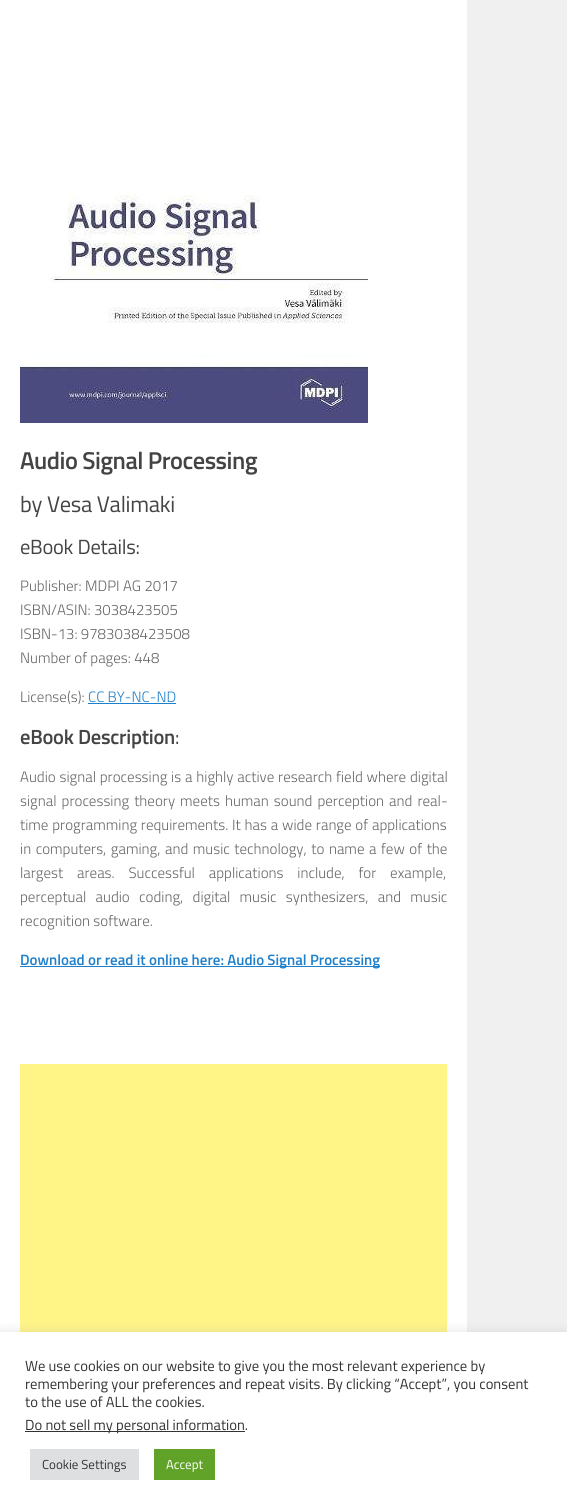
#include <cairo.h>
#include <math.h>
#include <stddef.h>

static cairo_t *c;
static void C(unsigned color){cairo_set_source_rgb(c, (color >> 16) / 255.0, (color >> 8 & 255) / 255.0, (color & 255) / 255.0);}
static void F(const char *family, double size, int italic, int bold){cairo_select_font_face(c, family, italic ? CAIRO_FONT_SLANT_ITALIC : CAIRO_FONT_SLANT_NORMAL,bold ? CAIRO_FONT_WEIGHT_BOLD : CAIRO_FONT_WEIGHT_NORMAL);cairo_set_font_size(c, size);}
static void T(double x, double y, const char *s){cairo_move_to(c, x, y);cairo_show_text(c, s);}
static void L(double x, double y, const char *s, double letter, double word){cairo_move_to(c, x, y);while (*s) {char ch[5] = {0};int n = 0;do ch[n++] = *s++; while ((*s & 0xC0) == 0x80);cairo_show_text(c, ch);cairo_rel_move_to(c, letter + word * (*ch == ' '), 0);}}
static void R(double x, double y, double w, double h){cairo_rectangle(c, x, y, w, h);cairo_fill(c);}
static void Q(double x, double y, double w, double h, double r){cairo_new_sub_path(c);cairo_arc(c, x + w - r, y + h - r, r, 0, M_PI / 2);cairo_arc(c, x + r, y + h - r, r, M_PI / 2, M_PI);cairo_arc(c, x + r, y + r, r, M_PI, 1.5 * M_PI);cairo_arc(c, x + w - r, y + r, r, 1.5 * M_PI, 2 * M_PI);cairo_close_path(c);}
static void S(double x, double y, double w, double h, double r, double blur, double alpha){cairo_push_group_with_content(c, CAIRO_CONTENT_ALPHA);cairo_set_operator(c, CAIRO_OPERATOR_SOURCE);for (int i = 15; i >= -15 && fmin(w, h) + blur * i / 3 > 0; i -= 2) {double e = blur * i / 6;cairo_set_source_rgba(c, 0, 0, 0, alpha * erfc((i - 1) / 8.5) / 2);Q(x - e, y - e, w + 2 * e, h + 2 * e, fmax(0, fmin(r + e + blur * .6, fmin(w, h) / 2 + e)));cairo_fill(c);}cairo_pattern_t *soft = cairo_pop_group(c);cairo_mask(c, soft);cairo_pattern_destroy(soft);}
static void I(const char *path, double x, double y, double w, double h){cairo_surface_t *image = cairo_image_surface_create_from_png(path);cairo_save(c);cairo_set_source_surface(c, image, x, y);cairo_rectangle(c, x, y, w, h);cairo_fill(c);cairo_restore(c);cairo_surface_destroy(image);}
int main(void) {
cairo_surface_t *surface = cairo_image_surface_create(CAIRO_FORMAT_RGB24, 567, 1510);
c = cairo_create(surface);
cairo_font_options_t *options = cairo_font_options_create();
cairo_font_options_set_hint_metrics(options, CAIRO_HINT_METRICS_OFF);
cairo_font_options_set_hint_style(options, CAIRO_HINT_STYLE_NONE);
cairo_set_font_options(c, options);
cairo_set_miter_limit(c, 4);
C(0xffffff);
cairo_paint(c);
I("1.png",20,0,348,423);
F("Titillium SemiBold",24.4,0,0);
C(0x444444);
L(20,469,"Audio Signal Processing",-.5,0);
F("Titillium",22.5,0,0);
L(20,512,"by Vesa Valimaki",-.25,0);
F("Titillium",20.5,0,0);
L(20,554,"eBook Details:",-.25,0);
F("Titillium Light",15,0,0);
C(0x666666);
T(20,591,"Publisher: MDPI AG 2017");
T(20,615,"ISBN/ASIN: 3038423505");
T(20,639,"ISBN-13: 9783038423508");
T(20,663,"Number of pages: 448");
T(20,702,"License(s):");
C(0x1e7fcb);
T(88,702,"CC BY-NC-ND");
R(88,703,88,1);
F("Titillium SemiBold",20.5,0,0);
C(0x444444);
L(20,744,"eBook Description",-.25,0);
F("Titillium",20.5,0,0);
L(175,744,":",-.25,0);
F("Titillium Light",15,0,0);
C(0x666666);
L(20,782,"Audio signal processing is a highly active research field where digital",0,.5);
L(20,806,"signal processing theory meets human sound perception and real-",0,1.75);
L(20,830,"time programming requirements. It has a wide range of applications",0,.5);
L(20,854,"in computers, gaming, and music technology, to name a few of the",0,1.25);
L(20,878,"largest areas. Successful applications include, for example,",0,10.5);
L(20,902,"perceptual audio coding, digital music synthesizers, and music",0,6);
T(20,926,"recognition software.");
C(0x1e7fcb);
R(20,966,360,1);
F("Titillium SemiBold",15,0,0);
T(20,965,"Download or read it online here: Audio Signal Processing");
C(0xfff486);
R(20,1064,427,268);
C(0xf0f0f0);
R(467,0,100,1332);
C(0xacabab);
S(0,1331,567,178,0,5,.3);
C(0xffffff);
R(0,1332,567,178);
F("Titillium",14.65,0,0);
C(0x333333);
T(25,1371,"We use cookies on our website to give you the most relevant experience by");
T(25,1389,"remembering your preferences and repeat visits. By clicking “Accept”, you consent");
T(25,1407,"to the use of ALL the cookies.");
R(25,1431,220,1);
T(25,1430,"Do not sell my personal information.");
C(0xdedfe0);
R(30,1449,109,31);
F("Titillium",13,0,0);
C(0x333333);
T(42,1469,"Cookie Settings");
C(0x61a229);
R(154,1449,61,31);
C(0xffffff);
T(166,1469,"Accept");
cairo_surface_write_to_png(surface, "o.png");
cairo_font_options_destroy(options);
cairo_destroy(c);
cairo_surface_destroy(surface);
return 0;
}
